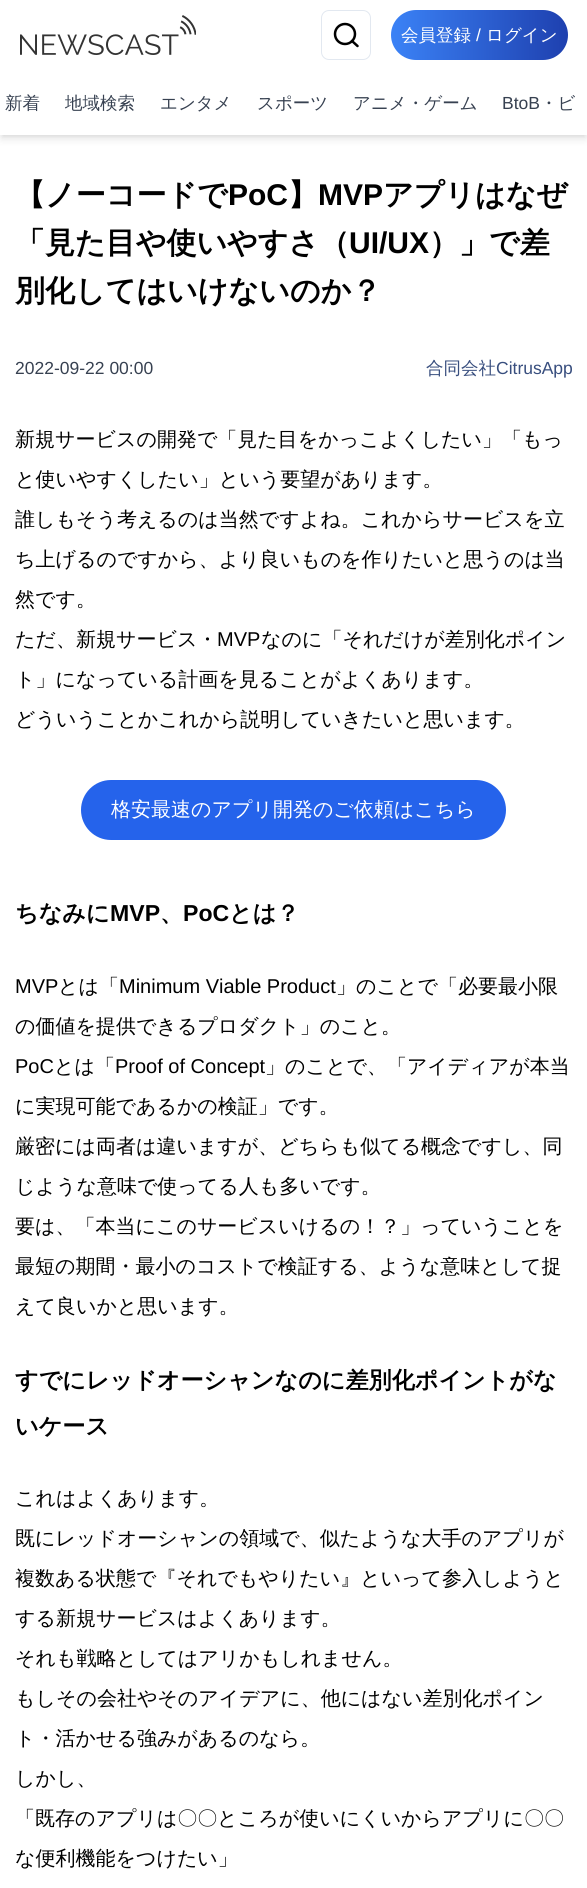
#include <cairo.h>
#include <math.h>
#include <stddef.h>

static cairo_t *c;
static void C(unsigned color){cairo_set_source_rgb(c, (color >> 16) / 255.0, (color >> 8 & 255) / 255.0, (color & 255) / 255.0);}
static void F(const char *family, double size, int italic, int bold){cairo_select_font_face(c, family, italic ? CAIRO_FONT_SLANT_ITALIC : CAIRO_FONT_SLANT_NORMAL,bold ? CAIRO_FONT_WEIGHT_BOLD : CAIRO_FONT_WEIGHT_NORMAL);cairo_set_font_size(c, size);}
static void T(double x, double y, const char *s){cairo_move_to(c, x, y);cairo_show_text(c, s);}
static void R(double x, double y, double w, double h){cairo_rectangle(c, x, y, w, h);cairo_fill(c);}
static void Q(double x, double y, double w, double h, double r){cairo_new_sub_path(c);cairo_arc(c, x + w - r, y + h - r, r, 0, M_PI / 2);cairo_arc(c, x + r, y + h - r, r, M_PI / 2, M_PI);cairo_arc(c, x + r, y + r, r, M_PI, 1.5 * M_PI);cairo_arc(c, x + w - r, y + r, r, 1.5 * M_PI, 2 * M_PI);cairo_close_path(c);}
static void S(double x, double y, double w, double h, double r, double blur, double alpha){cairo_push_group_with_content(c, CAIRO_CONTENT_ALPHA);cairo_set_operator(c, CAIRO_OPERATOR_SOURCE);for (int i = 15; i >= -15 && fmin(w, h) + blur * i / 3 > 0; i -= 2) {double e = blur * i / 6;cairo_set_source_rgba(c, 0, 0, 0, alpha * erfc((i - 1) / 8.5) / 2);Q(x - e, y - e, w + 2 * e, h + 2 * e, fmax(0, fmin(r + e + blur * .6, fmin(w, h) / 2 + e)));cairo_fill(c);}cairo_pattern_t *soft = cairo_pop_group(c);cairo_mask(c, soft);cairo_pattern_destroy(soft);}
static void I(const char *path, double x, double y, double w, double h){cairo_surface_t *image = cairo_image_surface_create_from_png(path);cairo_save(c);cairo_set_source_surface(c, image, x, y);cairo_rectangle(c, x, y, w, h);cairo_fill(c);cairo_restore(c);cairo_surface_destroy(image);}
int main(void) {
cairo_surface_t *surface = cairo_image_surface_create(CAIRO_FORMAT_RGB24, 587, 1888);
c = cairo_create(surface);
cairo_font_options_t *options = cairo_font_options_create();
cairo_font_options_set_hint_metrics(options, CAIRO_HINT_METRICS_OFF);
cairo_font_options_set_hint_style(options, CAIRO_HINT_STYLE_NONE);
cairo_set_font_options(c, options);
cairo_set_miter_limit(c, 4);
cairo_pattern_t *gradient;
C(0xffffff);
cairo_paint(c);
C(0x000000);
S(3,5,582,130,0,2.5,.1);
S(1,6,585,133,0,4,.1);
C(0xffffff);
R(0,0,587,135);
I("1.png",20,15,176,40);
Q(321.5,10.5,49,49,7.5);
C(0xe2e8f0);
cairo_set_line_width(c,1);
cairo_stroke(c);
cairo_arc(c,345,34,10,0,2 * M_PI);
C(0x000000);
cairo_set_line_width(c,2.5);
cairo_stroke(c);
cairo_new_path(c);
cairo_move_to(c,357.5,46);
cairo_line_to(c,352,41);
cairo_set_line_cap(c,CAIRO_LINE_CAP_ROUND);
cairo_set_line_join(c,CAIRO_LINE_JOIN_ROUND);
cairo_stroke(c);
gradient = cairo_pattern_create_linear(391,35,568,35);
cairo_pattern_add_color_stop_rgba(gradient,0,0.231,0.51,0.965,1);
cairo_pattern_add_color_stop_rgba(gradient,1,0.118,0.251,0.686,1);
cairo_set_source(c,gradient);
cairo_pattern_destroy(gradient);
Q(391,10,177,50,25);
cairo_fill(c);
F("WenQuanYi Zen Hei Medium",17.5,0,0);
C(0xffffff);
T(401,41,"会員登録");
F("Liberation Sans",17.5,0,0);
T(476,41,"/");
F("WenQuanYi Zen Hei Medium",17.5,0,0);
T(486,41,"ログイン");
C(0x374151);
T(5,109,"新着");
T(65,109,"地域検索");
T(160,109,"エンタメ");
T(257,109,"スポーツ");
T(353,109,"アニメ・ゲーム");
F("Liberation Sans",17.5,0,0);
T(502,109,"BtoB");
F("WenQuanYi Zen Hei Medium",17.5,0,0);
T(540,109,"・ビ");
F("WenQuanYi Zen Hei",30,0,1);
C(0x000000);
T(15,205,"【ノーコードで");
F("Liberation Sans",30,0,1);
T(228,205,"PoC");
F("WenQuanYi Zen Hei",30,0,1);
T(288,205,"】");
F("Liberation Sans",30,0,1);
T(318,205,"MVP");
F("WenQuanYi Zen Hei",30,0,1);
T(383,205,"アプリはなぜ");
T(15,253,"「見た目や使いやすさ（");
F("Liberation Sans",30,0,1);
T(349,253,"UI/UX");
F("WenQuanYi Zen Hei",30,0,1);
T(429,253,"）」で差");
T(15,301,"別化してはいけないのか？");
F("Liberation Sans",17.5,0,0);
C(0x374151);
T(15,374,"2022-09-22 00:00");
F("WenQuanYi Zen Hei Medium",17.5,0,0);
C(0x384e7e);
T(426,374,"合同会社");
F("Liberation Sans",17.5,0,0);
T(496,374,"CitrusApp");
F("WenQuanYi Zen Hei Medium",20,0,0);
C(0x000000);
T(15,446,"新規サービスの開発で「見た目をかっこよくしたい」「もっ");
T(15,486,"と使いやすくしたい」という要望があります。");
T(15,526,"誰しもそう考えるのは当然ですよね。これからサービスを立");
T(15,566,"ち上げるのですから、より良いものを作りたいと思うのは当");
T(15,606,"然です。");
T(15,646,"ただ、新規サービス・");
F("Liberation Sans",20,0,0);
T(217,646,"MVP");
F("WenQuanYi Zen Hei Medium",20,0,0);
T(261,646,"なのに「それだけが差別化ポイン");
T(15,686,"ト」になっている計画を見ることがよくあります。");
T(15,726,"どういうことかこれから説明していきたいと思います。");
C(0x2563eb);
Q(81,780,425,60,30);
cairo_fill(c);
C(0xffffff);
T(111,816,"格安最速のアプリ開発のご依頼はこちら");
F("WenQuanYi Zen Hei",23.1,0,1);
C(0x000000);
T(15,921,"ちなみに");
F("Liberation Sans",23.1,0,1);
T(110,921,"MVP");
T(183,921,"PoC");
F("WenQuanYi Zen Hei",23.1,0,1);
T(229,921,"とは？");
T(160,921,"、");
F("Liberation Sans",20,0,0);
T(15,993,"MVP");
F("WenQuanYi Zen Hei Medium",20,0,0);
T(58,993,"とは「");
F("Liberation Sans",20,0,0);
T(119,993,"Minimum Viable Product");
F("WenQuanYi Zen Hei Medium",20,0,0);
T(336,993,"」のことで「必要最小限");
T(15,1033,"の価値を提供できるプロダクト」のこと。");
F("Liberation Sans",20,0,0);
T(15,1073,"PoC");
F("WenQuanYi Zen Hei Medium",20,0,0);
T(54,1073,"とは「");
F("Liberation Sans",20,0,0);
T(115,1073,"Proof of Concept");
F("WenQuanYi Zen Hei Medium",20,0,0);
T(265,1073,"」のことで、「アイディアが本当");
T(15,1113,"に実現可能であるかの検証」です。");
T(15,1153,"厳密には両者は違いますが、どちらも似てる概念ですし、同");
T(15,1193,"じような意味で使ってる人も多いです。");
T(15,1233,"要は、「本当にこのサービスいけるの！？」っていうことを");
T(15,1273,"最短の期間・最小のコストで検証する、ような意味として捉");
T(15,1313,"えて良いかと思います。");
F("WenQuanYi Zen Hei",23.1,0,1);
T(15,1388,"すでにレッドオーシャンなのに差別化ポイントがな");
T(15,1434,"いケース");
F("WenQuanYi Zen Hei Medium",20,0,0);
T(15,1505,"これはよくあります。");
T(15,1545,"既にレッドオーシャンの領域で、似たような大手のアプリが");
T(15,1585,"複数ある状態で『それでもやりたい』といって参入しようと");
T(15,1625,"する新規サービスはよくあります。");
T(15,1665,"それも戦略としてはアリかもしれません。");
T(15,1705,"もしその会社やそのアイデアに、他にはない差別化ポイン");
T(15,1745,"ト・活かせる強みがあるのなら。");
T(15,1785,"しかし、");
T(15,1825,"「既存のアプリは〇〇ところが使いにくいからアプリに〇〇");
T(15,1865,"な便利機能をつけたい」");
cairo_surface_write_to_png(surface, "o.png");
cairo_font_options_destroy(options);
cairo_destroy(c);
cairo_surface_destroy(surface);
return 0;
}
